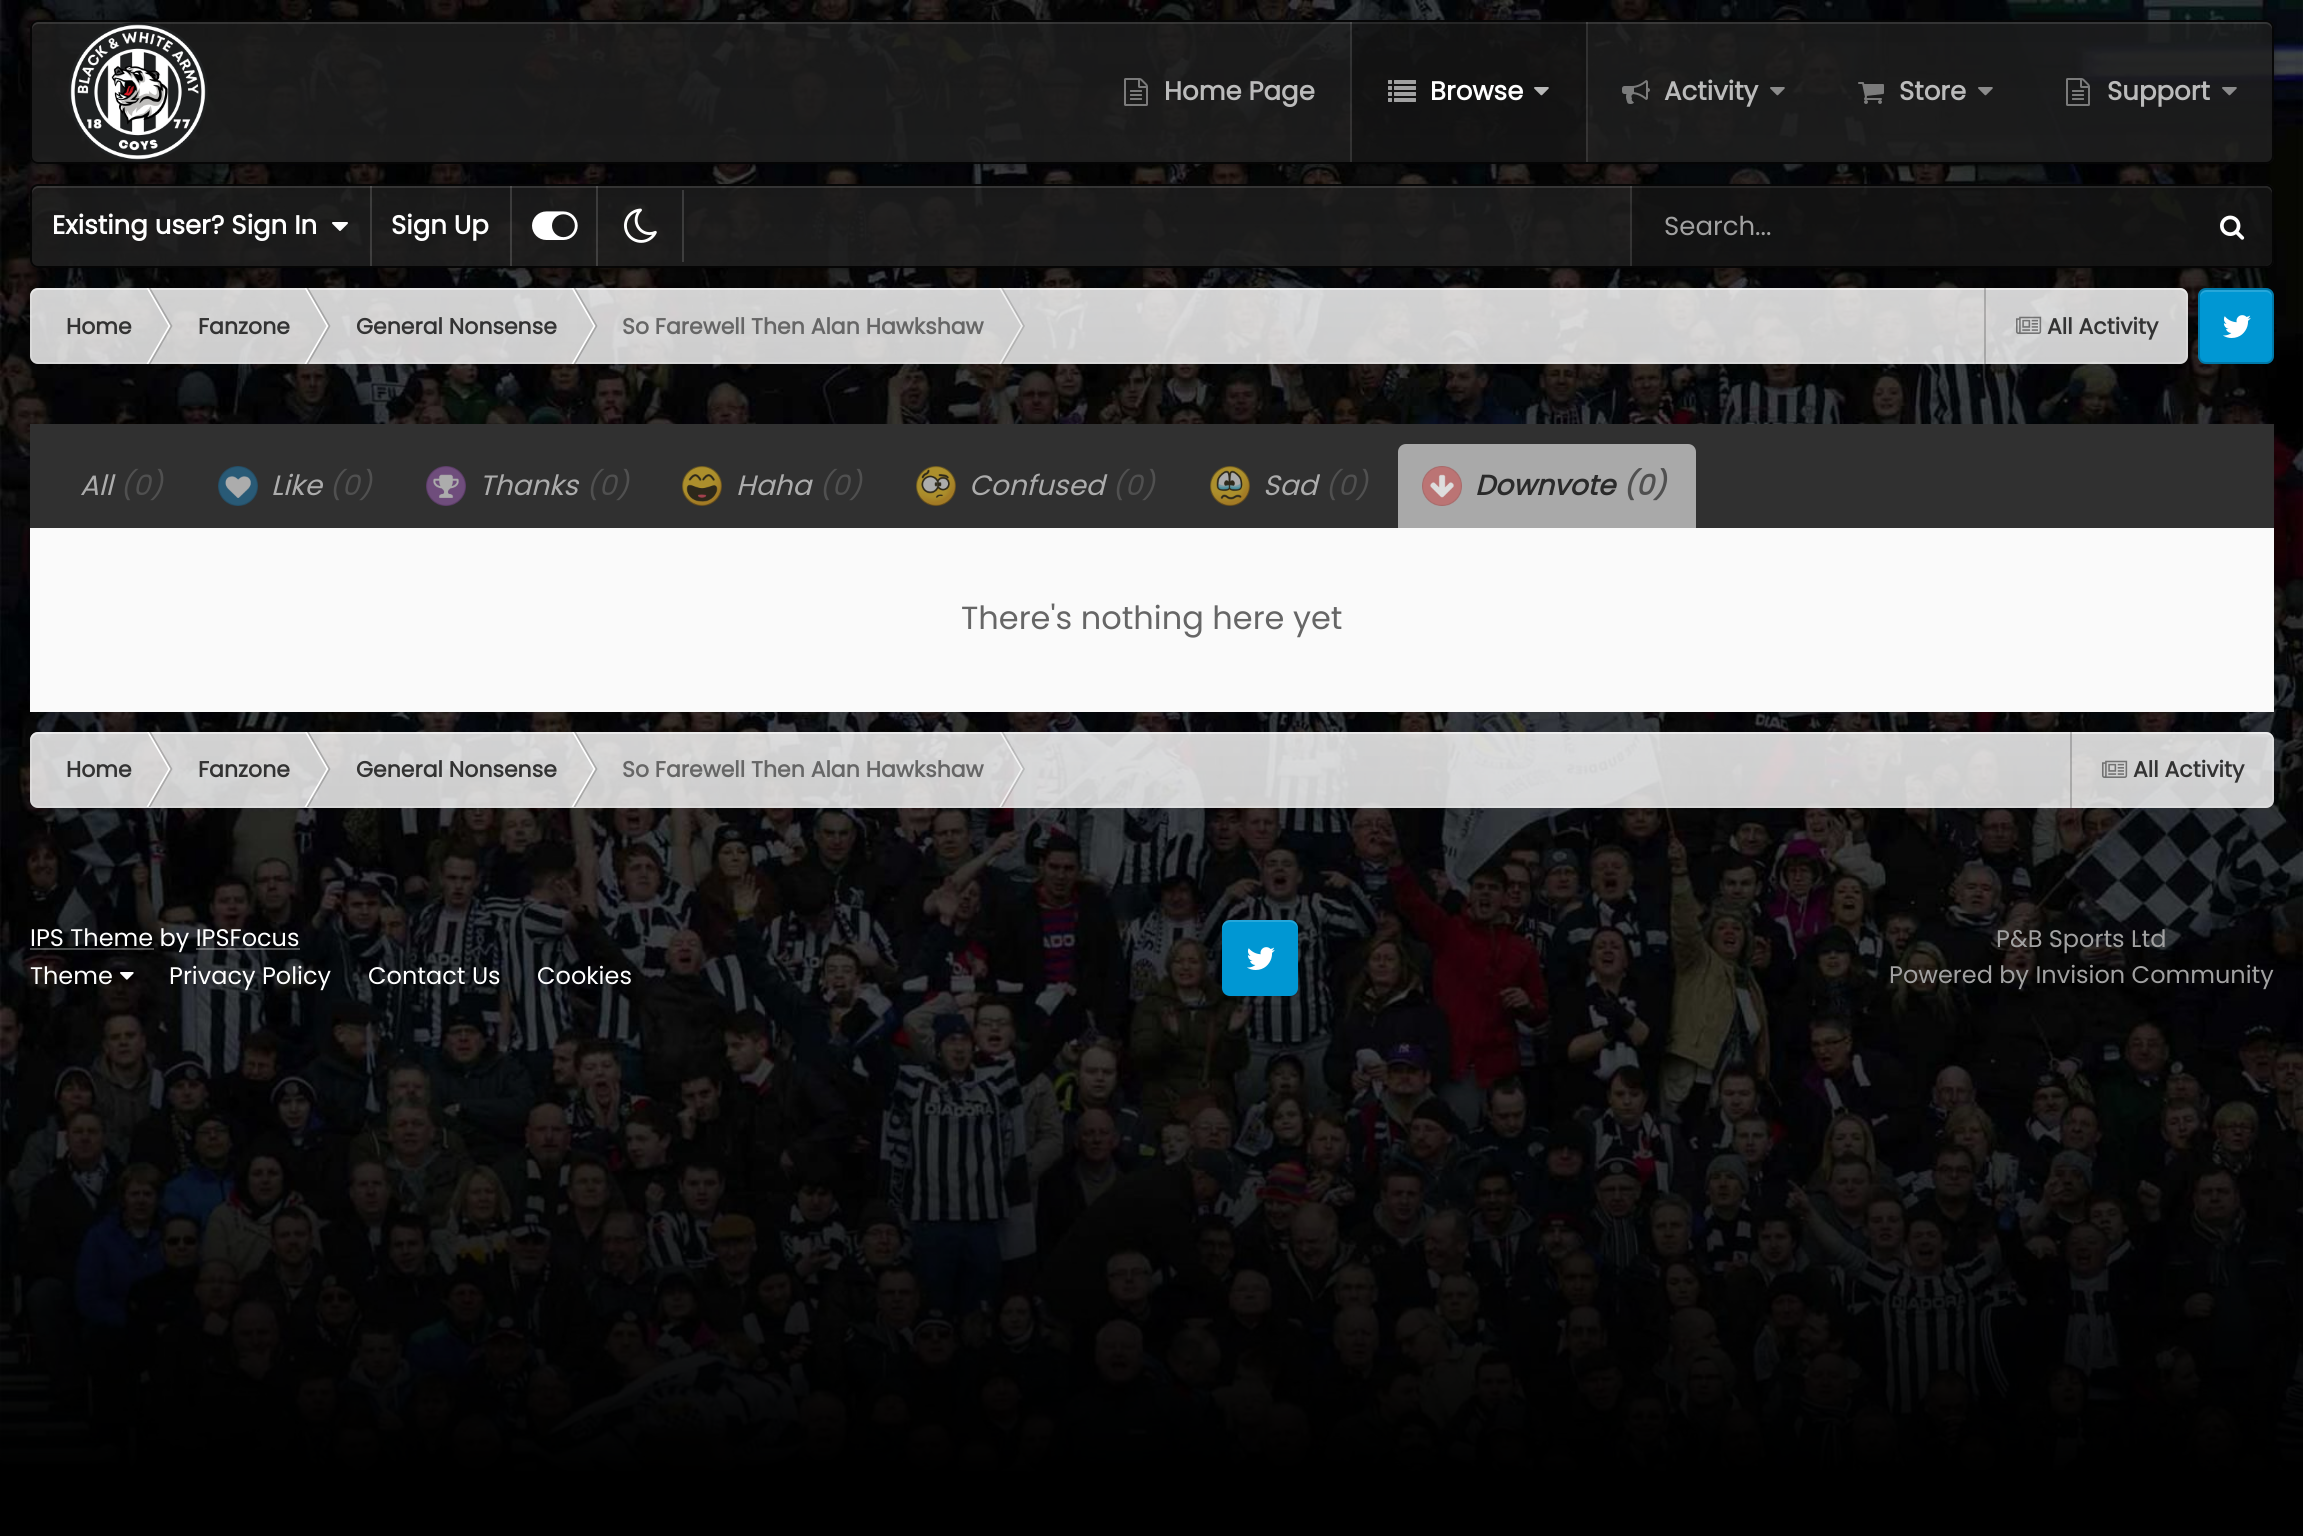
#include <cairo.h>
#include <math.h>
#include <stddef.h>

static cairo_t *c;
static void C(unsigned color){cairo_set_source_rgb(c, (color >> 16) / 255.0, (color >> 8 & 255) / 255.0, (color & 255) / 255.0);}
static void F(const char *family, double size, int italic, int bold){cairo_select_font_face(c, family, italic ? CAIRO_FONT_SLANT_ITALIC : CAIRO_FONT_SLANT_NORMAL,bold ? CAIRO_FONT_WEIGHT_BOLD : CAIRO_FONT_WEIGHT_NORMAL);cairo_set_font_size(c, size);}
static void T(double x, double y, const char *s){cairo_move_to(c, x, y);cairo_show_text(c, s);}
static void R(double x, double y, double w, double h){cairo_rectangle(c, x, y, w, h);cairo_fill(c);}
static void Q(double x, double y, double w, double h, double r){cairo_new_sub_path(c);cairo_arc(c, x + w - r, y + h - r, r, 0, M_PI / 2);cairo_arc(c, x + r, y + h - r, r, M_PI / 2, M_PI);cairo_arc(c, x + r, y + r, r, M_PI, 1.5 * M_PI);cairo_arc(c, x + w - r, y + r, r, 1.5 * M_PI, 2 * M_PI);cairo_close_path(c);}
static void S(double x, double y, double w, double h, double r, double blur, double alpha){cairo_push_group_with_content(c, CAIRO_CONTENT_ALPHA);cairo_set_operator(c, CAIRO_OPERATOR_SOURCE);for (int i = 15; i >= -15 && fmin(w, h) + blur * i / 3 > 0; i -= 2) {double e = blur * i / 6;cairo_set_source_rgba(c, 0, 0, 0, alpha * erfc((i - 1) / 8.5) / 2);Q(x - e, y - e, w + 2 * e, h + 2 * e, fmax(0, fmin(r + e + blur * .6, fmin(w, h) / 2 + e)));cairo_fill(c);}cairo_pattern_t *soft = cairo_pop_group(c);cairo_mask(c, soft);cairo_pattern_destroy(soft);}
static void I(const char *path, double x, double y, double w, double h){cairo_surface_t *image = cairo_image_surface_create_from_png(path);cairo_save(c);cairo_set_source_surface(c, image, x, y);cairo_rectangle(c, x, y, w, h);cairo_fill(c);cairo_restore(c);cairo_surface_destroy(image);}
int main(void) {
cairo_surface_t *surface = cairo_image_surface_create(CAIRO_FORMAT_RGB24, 2303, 1536);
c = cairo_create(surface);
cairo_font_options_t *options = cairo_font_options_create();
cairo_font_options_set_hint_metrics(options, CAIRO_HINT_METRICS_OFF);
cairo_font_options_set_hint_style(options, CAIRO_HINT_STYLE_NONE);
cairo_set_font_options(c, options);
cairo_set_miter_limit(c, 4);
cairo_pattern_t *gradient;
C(0x000000);
cairo_paint(c);
I("1.png",0,0,2303,1498);
cairo_save(c);
cairo_set_fill_rule(c,CAIRO_FILL_RULE_EVEN_ODD);
cairo_new_path(c);
cairo_move_to(c,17,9);
cairo_line_to(c,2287,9);
cairo_line_to(c,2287,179);
cairo_line_to(c,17,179);
cairo_close_path(c);
cairo_move_to(c,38,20);
cairo_line_to(c,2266,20);
cairo_curve_to(c,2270.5,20,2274,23.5,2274,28);
cairo_line_to(c,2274,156);
cairo_curve_to(c,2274,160.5,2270.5,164,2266,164);
cairo_line_to(c,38,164);
cairo_curve_to(c,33.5,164,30,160.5,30,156);
cairo_line_to(c,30,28);
cairo_curve_to(c,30,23.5,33.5,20,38,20);
cairo_close_path(c);
cairo_clip(c);
S(30,22,2244,144,8,4,.3);
cairo_restore(c);
cairo_save(c);
Q(30,20,2244,144,8);
cairo_clip(c);
gradient = cairo_pattern_create_linear(1152,-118,1152,22);
cairo_pattern_add_color_stop_rgba(gradient,0,0.118,0.118,0.118,.8);
cairo_pattern_add_color_stop_rgba(gradient,1,0.118,0.118,0.118,.9);
cairo_set_source(c,gradient);
cairo_pattern_destroy(gradient);
R(30,20,2244,2);
gradient = cairo_pattern_create_linear(1152,22,1152,162);
cairo_pattern_add_color_stop_rgba(gradient,0,0.118,0.118,0.118,.8);
cairo_pattern_add_color_stop_rgba(gradient,1,0.118,0.118,0.118,.9);
cairo_set_source(c,gradient);
cairo_pattern_destroy(gradient);
R(30,22,2244,140);
gradient = cairo_pattern_create_linear(1152,162,1152,302);
cairo_pattern_add_color_stop_rgba(gradient,0,0.118,0.118,0.118,.8);
cairo_pattern_add_color_stop_rgba(gradient,1,0.118,0.118,0.118,.9);
cairo_set_source(c,gradient);
cairo_pattern_destroy(gradient);
R(30,162,2244,2);
cairo_restore(c);
cairo_set_source_rgba(c,1,1,1,0.12);
cairo_new_path(c);
cairo_move_to(c,38,24);
cairo_line_to(c,2266,24);
cairo_curve_to(c,2269,24,2272,27,2272,30);
cairo_line_to(c,2272,28);
cairo_curve_to(c,2272,25,2269,22,2266,22);
cairo_line_to(c,38,22);
cairo_curve_to(c,35,22,32,25,32,28);
cairo_line_to(c,32,30);
cairo_curve_to(c,32,27,35,24,38,24);
cairo_close_path(c);
cairo_fill(c);
Q(31,21,2242,142,7);
cairo_set_source_rgba(c,0,0,0,0.8);
cairo_stroke(c);
I("2.png",68,22,140,140);
I("3.png",1124,78,24,28);
F("Poppins",26,0,1);
C(0xbbbbbb);
T(1164,100,"Home Page");
cairo_set_source_rgba(c,1,1,1,0.1);
R(1586,22,2,140);
R(1350,22,2,140);
cairo_set_source_rgba(c,0,0,0,0.3);
R(1352,22,234,140);
I("4.png",1388,80,28,22);
C(0xffffff);
T(1430,100,"Browse");
I("5.png",1534,87,15,9);
I("6.png",1622,80,28,24);
C(0xbbbbbb);
T(1664,100,"Activity");
I("7.png",1770,87,15,9);
I("8.png",1858,82,26,22);
T(1899,100,"Store");
I("9.png",1978,87,15,9);
I("10.png",2066,78,24,28);
T(2107,100,"Support");
I("11.png",2222,87,15,9);
cairo_save(c);
cairo_set_fill_rule(c,CAIRO_FILL_RULE_EVEN_ODD);
cairo_new_path(c);
cairo_move_to(c,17,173);
cairo_line_to(c,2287,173);
cairo_line_to(c,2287,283);
cairo_line_to(c,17,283);
cairo_close_path(c);
cairo_move_to(c,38,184);
cairo_line_to(c,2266,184);
cairo_curve_to(c,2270.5,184,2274,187.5,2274,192);
cairo_line_to(c,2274,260);
cairo_curve_to(c,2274,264.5,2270.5,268,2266,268);
cairo_line_to(c,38,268);
cairo_curve_to(c,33.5,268,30,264.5,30,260);
cairo_line_to(c,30,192);
cairo_curve_to(c,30,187.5,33.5,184,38,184);
cairo_close_path(c);
cairo_clip(c);
C(0x000000);
S(30,186,2244,84,8,4,.3);
cairo_restore(c);
cairo_save(c);
Q(30,184,2244,84,8);
cairo_clip(c);
gradient = cairo_pattern_create_linear(1152,106,1152,186);
cairo_pattern_add_color_stop_rgba(gradient,0,0.118,0.118,0.118,.8);
cairo_pattern_add_color_stop_rgba(gradient,1,0.118,0.118,0.118,.9);
cairo_set_source(c,gradient);
cairo_pattern_destroy(gradient);
R(30,184,2244,2);
gradient = cairo_pattern_create_linear(1152,186,1152,266);
cairo_pattern_add_color_stop_rgba(gradient,0,0.118,0.118,0.118,.8);
cairo_pattern_add_color_stop_rgba(gradient,1,0.118,0.118,0.118,.9);
cairo_set_source(c,gradient);
cairo_pattern_destroy(gradient);
R(30,186,2244,80);
gradient = cairo_pattern_create_linear(1152,266,1152,346);
cairo_pattern_add_color_stop_rgba(gradient,0,0.118,0.118,0.118,.8);
cairo_pattern_add_color_stop_rgba(gradient,1,0.118,0.118,0.118,.9);
cairo_set_source(c,gradient);
cairo_pattern_destroy(gradient);
R(30,266,2244,2);
cairo_restore(c);
cairo_set_source_rgba(c,1,1,1,0.12);
cairo_new_path(c);
cairo_move_to(c,38,188);
cairo_line_to(c,2266,188);
cairo_curve_to(c,2269,188,2272,191,2272,194);
cairo_line_to(c,2272,192);
cairo_curve_to(c,2272,189,2269,186,2266,186);
cairo_line_to(c,38,186);
cairo_curve_to(c,35,186,32,189,32,192);
cairo_line_to(c,32,194);
cairo_curve_to(c,32,191,35,188,38,188);
cairo_close_path(c);
cairo_fill(c);
Q(31,185,2242,82,7);
cairo_set_source_rgba(c,0,0,0,0.8);
cairo_stroke(c);
cairo_set_source_rgba(c,1,1,1,0.15);
R(370,186,2,80);
C(0xffffff);
T(52,234,"Existing user? Sign In");
I("12.png",332,222,16,9);
cairo_set_source_rgba(c,1,1,1,0.15);
R(510,186,2,80);
C(0xffffff);
T(391,234,"Sign Up");
cairo_set_source_rgba(c,1,1,1,0.15);
R(596,186,2,80);
I("13.png",532,211,46,29);
R(682,190,2,72);
I("14.png",624,208,33,35);
cairo_set_source_rgba(c,1,1,1,0.1);
R(1630,186,2,80);
cairo_set_source_rgba(c,0,0,0,0.3);
cairo_new_path(c);
cairo_move_to(c,1632,186);
cairo_line_to(c,2264,186);
cairo_curve_to(c,2268.5,186,2272,189.5,2272,194);
cairo_line_to(c,2272,258);
cairo_curve_to(c,2272,262.5,2268.5,266,2264,266);
cairo_line_to(c,1632,266);
cairo_close_path(c);
cairo_fill(c);
F("Poppins",26,0,0);
C(0xa1a1a1);
T(1664,235,"Search...");
I("15.png",2220,215,25,25);
cairo_set_source_rgba(c,1,1,1,0.8);
Q(30,288,2158,76,8);
cairo_fill(c);
gradient = cairo_pattern_create_linear(1109,288,1109,364);
cairo_pattern_add_color_stop_rgba(gradient,0,1,1,1,.1);
cairo_pattern_add_color_stop_rgba(gradient,1,1,1,1,0);
cairo_set_source(c,gradient);
cairo_pattern_destroy(gradient);
Q(30,288,2158,76,8);
cairo_fill(c);
Q(31,289,2156,74,7);
cairo_set_source_rgba(c,1,1,1,0.2);
cairo_stroke(c);
cairo_set_source_rgba(c,1,1,1,0.4);
cairo_new_path(c);
cairo_move_to(c,38,290);
cairo_line_to(c,2180,290);
cairo_curve_to(c,2184,290,2188,294,2188,298);
cairo_curve_to(c,2188,293,2186,288,2180,288);
cairo_line_to(c,38,288);
cairo_curve_to(c,32,288,30,293,30,298);
cairo_curve_to(c,30,294,34,290,38,290);
cairo_close_path(c);
cairo_fill(c);
F("Poppins",22,0,1);
C(0x333333);
T(66,334,"Home");
C(0xffffff);
cairo_new_path(c);
cairo_move_to(c,146.5,288);
cairo_line_to(c,148.5,288);
cairo_line_to(c,170.5,326);
cairo_line_to(c,168.5,326);
cairo_close_path(c);
cairo_fill(c);
cairo_set_source_rgba(c,0,0,0,0.2);
cairo_new_path(c);
cairo_move_to(c,148.5,288);
cairo_line_to(c,150.5,288);
cairo_line_to(c,172.5,326);
cairo_line_to(c,170.5,326);
cairo_close_path(c);
cairo_fill(c);
C(0xffffff);
cairo_new_path(c);
cairo_move_to(c,146.5,364);
cairo_line_to(c,148.5,364);
cairo_line_to(c,170.5,326);
cairo_line_to(c,168.5,326);
cairo_close_path(c);
cairo_fill(c);
cairo_set_source_rgba(c,0,0,0,0.2);
cairo_new_path(c);
cairo_move_to(c,148.5,364);
cairo_line_to(c,150.5,364);
cairo_line_to(c,172.5,326);
cairo_line_to(c,170.5,326);
cairo_close_path(c);
cairo_fill(c);
C(0x333333);
T(198,334,"Fanzone");
C(0xffffff);
cairo_new_path(c);
cairo_move_to(c,304.5,288);
cairo_line_to(c,306.5,288);
cairo_line_to(c,328.5,326);
cairo_line_to(c,326.5,326);
cairo_close_path(c);
cairo_fill(c);
cairo_set_source_rgba(c,0,0,0,0.2);
cairo_new_path(c);
cairo_move_to(c,306.5,288);
cairo_line_to(c,308.5,288);
cairo_line_to(c,330.5,326);
cairo_line_to(c,328.5,326);
cairo_close_path(c);
cairo_fill(c);
C(0xffffff);
cairo_new_path(c);
cairo_move_to(c,304.5,364);
cairo_line_to(c,306.5,364);
cairo_line_to(c,328.5,326);
cairo_line_to(c,326.5,326);
cairo_close_path(c);
cairo_fill(c);
cairo_set_source_rgba(c,0,0,0,0.2);
cairo_new_path(c);
cairo_move_to(c,306.5,364);
cairo_line_to(c,308.5,364);
cairo_line_to(c,330.5,326);
cairo_line_to(c,328.5,326);
cairo_close_path(c);
cairo_fill(c);
C(0x333333);
T(356,334,"General Nonsense");
C(0xffffff);
cairo_new_path(c);
cairo_move_to(c,571.5,288);
cairo_line_to(c,573.5,288);
cairo_line_to(c,595.5,326);
cairo_line_to(c,593.5,326);
cairo_close_path(c);
cairo_fill(c);
cairo_set_source_rgba(c,0,0,0,0.2);
cairo_new_path(c);
cairo_move_to(c,573.5,288);
cairo_line_to(c,575.5,288);
cairo_line_to(c,597.5,326);
cairo_line_to(c,595.5,326);
cairo_close_path(c);
cairo_fill(c);
C(0xffffff);
cairo_new_path(c);
cairo_move_to(c,571.5,364);
cairo_line_to(c,573.5,364);
cairo_line_to(c,595.5,326);
cairo_line_to(c,593.5,326);
cairo_close_path(c);
cairo_fill(c);
cairo_set_source_rgba(c,0,0,0,0.2);
cairo_new_path(c);
cairo_move_to(c,573.5,364);
cairo_line_to(c,575.5,364);
cairo_line_to(c,597.5,326);
cairo_line_to(c,595.5,326);
cairo_close_path(c);
cairo_fill(c);
C(0x666666);
T(622,334,"So Farewell Then Alan Hawkshaw");
cairo_set_source_rgba(c,1,1,1,0.7);
cairo_new_path(c);
cairo_move_to(c,999,288);
cairo_line_to(c,1001,288);
cairo_line_to(c,1023,326);
cairo_line_to(c,1021,326);
cairo_close_path(c);
cairo_fill(c);
cairo_set_source_rgba(c,0,0,0,0.14);
cairo_new_path(c);
cairo_move_to(c,1001,288);
cairo_line_to(c,1003,288);
cairo_line_to(c,1025,326);
cairo_line_to(c,1023,326);
cairo_close_path(c);
cairo_fill(c);
cairo_set_source_rgba(c,1,1,1,0.7);
cairo_new_path(c);
cairo_move_to(c,999,364);
cairo_line_to(c,1001,364);
cairo_line_to(c,1023,326);
cairo_line_to(c,1021,326);
cairo_close_path(c);
cairo_fill(c);
cairo_set_source_rgba(c,0,0,0,0.14);
cairo_new_path(c);
cairo_move_to(c,1001,364);
cairo_line_to(c,1003,364);
cairo_line_to(c,1025,326);
cairo_line_to(c,1023,326);
cairo_close_path(c);
cairo_fill(c);
cairo_set_source_rgba(c,0,0,0,0.2);
R(1984,288,2,76);
I("16.png",2016,316,26,18);
C(0x333333);
T(2047,334,"All Activity");
C(0x0097d3);
Q(2198,288,76,76,8);
cairo_fill(c);
C(0x26a7da);
cairo_new_path(c);
cairo_move_to(c,2206,292);
cairo_curve_to(c,2203,292,2200,295,2200,298);
cairo_curve_to(c,2200,288,2208,290,2216,290);
cairo_line_to(c,2256,290);
cairo_curve_to(c,2264,290,2272,288,2272,298);
cairo_curve_to(c,2272,295,2269,292,2266,292);
cairo_close_path(c);
cairo_fill(c);
I("17.png",2223,315,28,23);
Q(2199,289,74,74,7);
cairo_set_source_rgba(c,0,0,0,0.2);
cairo_stroke(c);
C(0x303030);
R(30,424,2244,104);
F("Poppins",28,1,0);
C(0xacacac);
T(80,495,"All");
C(0x505050);
T(120,495,"(0)");
I("18.png",218,466,40,40);
C(0xacacac);
T(271,495,"Like");
C(0x505050);
T(329,495,"(0)");
I("19.png",426,466,40,40);
C(0xacacac);
T(479,495,"Thanks");
C(0x505050);
T(586,495,"(0)");
I("20.png",682,466,40,40);
C(0xacacac);
T(736,495,"Haha");
C(0x505050);
T(819,495,"(0)");
I("21.png",916,466,40,40);
C(0xacacac);
T(969,495,"Confused");
C(0x505050);
T(1112,495,"(0)");
I("22.png",1210,466,40,40);
C(0xacacac);
T(1263,495,"Sad");
C(0x505050);
T(1325,495,"(0)");
C(0xa9a9a9);
cairo_new_path(c);
cairo_move_to(c,1406,444);
cairo_line_to(c,1688,444);
cairo_curve_to(c,1692.5,444,1696,447.5,1696,452);
cairo_line_to(c,1696,528);
cairo_line_to(c,1398,528);
cairo_line_to(c,1398,452);
cairo_curve_to(c,1398,447.5,1401.5,444,1406,444);
cairo_close_path(c);
cairo_fill(c);
I("23.png",1422,466,40,40);
F("Poppins",28,1,1);
C(0x2a2a2a);
T(1475,495,"Downvote");
C(0x505050);
T(1623,495,"(0)");
C(0xfafafa);
R(30,528,2244,184);
F("Poppins",32,0,0);
C(0x666666);
T(961,629,"There's nothing here yet");
cairo_set_source_rgba(c,1,1,1,0.8);
Q(30,732,2244,76,8);
cairo_fill(c);
gradient = cairo_pattern_create_linear(1152,732,1152,808);
cairo_pattern_add_color_stop_rgba(gradient,0,1,1,1,.1);
cairo_pattern_add_color_stop_rgba(gradient,1,1,1,1,0);
cairo_set_source(c,gradient);
cairo_pattern_destroy(gradient);
Q(30,732,2244,76,8);
cairo_fill(c);
Q(31,733,2242,74,7);
cairo_set_source_rgba(c,1,1,1,0.2);
cairo_stroke(c);
cairo_set_source_rgba(c,1,1,1,0.4);
cairo_new_path(c);
cairo_move_to(c,38,734);
cairo_line_to(c,2266,734);
cairo_curve_to(c,2270,734,2274,738,2274,742);
cairo_curve_to(c,2274,737,2272,732,2266,732);
cairo_line_to(c,38,732);
cairo_curve_to(c,32,732,30,737,30,742);
cairo_curve_to(c,30,738,34,734,38,734);
cairo_close_path(c);
cairo_fill(c);
F("Poppins",22,0,1);
C(0x333333);
T(66,777,"Home");
C(0xffffff);
cairo_new_path(c);
cairo_move_to(c,149,732);
cairo_line_to(c,147,732);
cairo_line_to(c,168.5,769);
cairo_line_to(c,170.5,769);
cairo_close_path(c);
cairo_fill(c);
cairo_set_source_rgba(c,0,0,0,0.2);
cairo_new_path(c);
cairo_move_to(c,151,732);
cairo_line_to(c,149,732);
cairo_line_to(c,170.5,769);
cairo_line_to(c,172.5,769);
cairo_close_path(c);
cairo_fill(c);
C(0xffffff);
cairo_new_path(c);
cairo_move_to(c,146.5,807);
cairo_line_to(c,148.5,807);
cairo_line_to(c,170.5,769);
cairo_line_to(c,168.5,769);
cairo_close_path(c);
cairo_fill(c);
cairo_set_source_rgba(c,0,0,0,0.2);
cairo_new_path(c);
cairo_move_to(c,148.5,807);
cairo_line_to(c,150.5,807);
cairo_line_to(c,172.5,769);
cairo_line_to(c,170.5,769);
cairo_close_path(c);
cairo_fill(c);
C(0x333333);
T(198,777,"Fanzone");
C(0xffffff);
cairo_new_path(c);
cairo_move_to(c,307,732);
cairo_line_to(c,305,732);
cairo_line_to(c,326.5,769);
cairo_line_to(c,328.5,769);
cairo_close_path(c);
cairo_fill(c);
cairo_set_source_rgba(c,0,0,0,0.2);
cairo_new_path(c);
cairo_move_to(c,309,732);
cairo_line_to(c,307,732);
cairo_line_to(c,328.5,769);
cairo_line_to(c,330.5,769);
cairo_close_path(c);
cairo_fill(c);
C(0xffffff);
cairo_new_path(c);
cairo_move_to(c,304.5,807);
cairo_line_to(c,306.5,807);
cairo_line_to(c,328.5,769);
cairo_line_to(c,326.5,769);
cairo_close_path(c);
cairo_fill(c);
cairo_set_source_rgba(c,0,0,0,0.2);
cairo_new_path(c);
cairo_move_to(c,306.5,807);
cairo_line_to(c,308.5,807);
cairo_line_to(c,330.5,769);
cairo_line_to(c,328.5,769);
cairo_close_path(c);
cairo_fill(c);
C(0x333333);
T(356,777,"General Nonsense");
C(0xffffff);
cairo_new_path(c);
cairo_move_to(c,574,732);
cairo_line_to(c,572,732);
cairo_line_to(c,593.5,769);
cairo_line_to(c,595.5,769);
cairo_close_path(c);
cairo_fill(c);
cairo_set_source_rgba(c,0,0,0,0.2);
cairo_new_path(c);
cairo_move_to(c,576,732);
cairo_line_to(c,574,732);
cairo_line_to(c,595.5,769);
cairo_line_to(c,597.5,769);
cairo_close_path(c);
cairo_fill(c);
C(0xffffff);
cairo_new_path(c);
cairo_move_to(c,571.5,807);
cairo_line_to(c,573.5,807);
cairo_line_to(c,595.5,769);
cairo_line_to(c,593.5,769);
cairo_close_path(c);
cairo_fill(c);
cairo_set_source_rgba(c,0,0,0,0.2);
cairo_new_path(c);
cairo_move_to(c,573.5,807);
cairo_line_to(c,575.5,807);
cairo_line_to(c,597.5,769);
cairo_line_to(c,595.5,769);
cairo_close_path(c);
cairo_fill(c);
C(0x666666);
T(622,777,"So Farewell Then Alan Hawkshaw");
cairo_set_source_rgba(c,1,1,1,0.7);
cairo_new_path(c);
cairo_move_to(c,1001.5,732);
cairo_line_to(c,999.5,732);
cairo_line_to(c,1021,769);
cairo_line_to(c,1023,769);
cairo_close_path(c);
cairo_fill(c);
cairo_set_source_rgba(c,0,0,0,0.14);
cairo_new_path(c);
cairo_move_to(c,1003.5,732);
cairo_line_to(c,1001.5,732);
cairo_line_to(c,1023,769);
cairo_line_to(c,1025,769);
cairo_close_path(c);
cairo_fill(c);
cairo_set_source_rgba(c,1,1,1,0.7);
cairo_new_path(c);
cairo_move_to(c,999,807);
cairo_line_to(c,1001,807);
cairo_line_to(c,1023,769);
cairo_line_to(c,1021,769);
cairo_close_path(c);
cairo_fill(c);
cairo_set_source_rgba(c,0,0,0,0.14);
cairo_new_path(c);
cairo_move_to(c,1001,807);
cairo_line_to(c,1003,807);
cairo_line_to(c,1025,769);
cairo_line_to(c,1023,769);
cairo_close_path(c);
cairo_fill(c);
cairo_set_source_rgba(c,0,0,0,0.2);
R(2070,732,2,76);
I("24.png",2102,760,26,18);
C(0x333333);
T(2133,777,"All Activity");
cairo_set_source_rgba(c,1,1,1,0.3);
R(30,948,124,2);
F("Poppins",24,0,0);
C(0xffffff);
T(30,946,"IPS Theme by IPSFocus");
cairo_set_source_rgba(c,1,1,1,0.3);
R(196,948,104,2);
C(0xffffff);
T(30,984,"Theme");
I("25.png",120,972,14,8);
T(169,984,"Privacy Policy");
T(368,984,"Contact Us");
T(537,984,"Cookies");
C(0x0097d3);
Q(1222,920,76,76,8);
cairo_fill(c);
cairo_set_source_rgba(c,1,1,1,0.15);
cairo_new_path(c);
cairo_move_to(c,1230,922);
cairo_curve_to(c,1226,922,1222,926,1222,930);
cairo_curve_to(c,1222,918,1231,920,1240,920);
cairo_line_to(c,1280,920);
cairo_curve_to(c,1289,920,1298,918,1298,930);
cairo_curve_to(c,1298,926,1294,922,1290,922);
cairo_close_path(c);
cairo_fill(c);
I("17.png",1247,947,28,23);
C(0xa1a1a1);
T(1996,947,"P&B Sports Ltd");
T(1889,983,"Powered by Invision Community");
cairo_surface_write_to_png(surface, "o.png");
cairo_font_options_destroy(options);
cairo_destroy(c);
cairo_surface_destroy(surface);
return 0;
}
